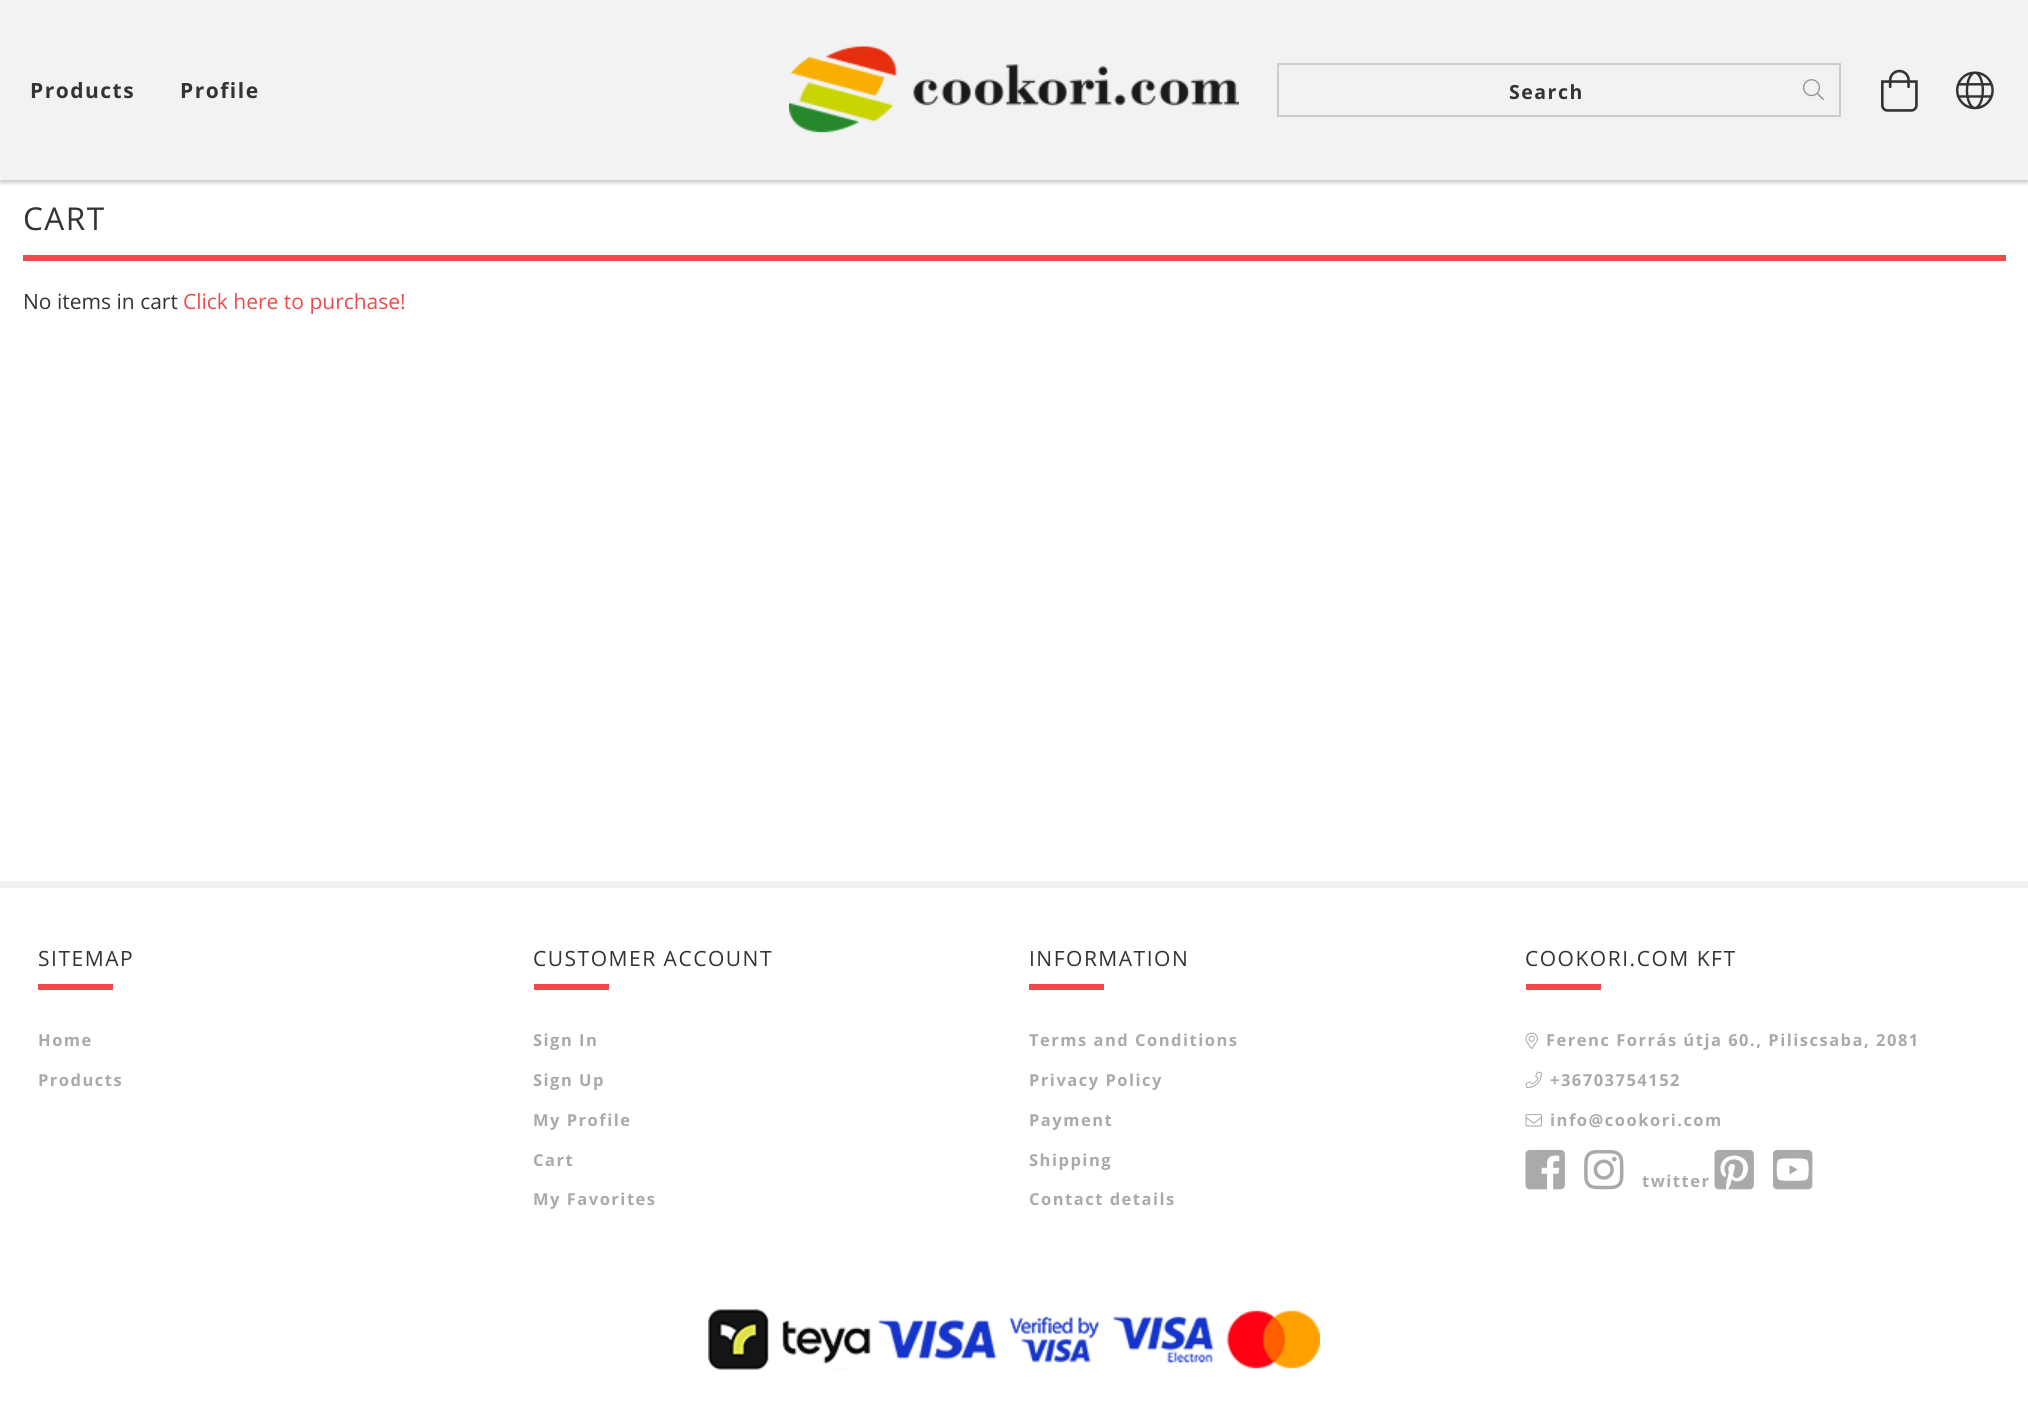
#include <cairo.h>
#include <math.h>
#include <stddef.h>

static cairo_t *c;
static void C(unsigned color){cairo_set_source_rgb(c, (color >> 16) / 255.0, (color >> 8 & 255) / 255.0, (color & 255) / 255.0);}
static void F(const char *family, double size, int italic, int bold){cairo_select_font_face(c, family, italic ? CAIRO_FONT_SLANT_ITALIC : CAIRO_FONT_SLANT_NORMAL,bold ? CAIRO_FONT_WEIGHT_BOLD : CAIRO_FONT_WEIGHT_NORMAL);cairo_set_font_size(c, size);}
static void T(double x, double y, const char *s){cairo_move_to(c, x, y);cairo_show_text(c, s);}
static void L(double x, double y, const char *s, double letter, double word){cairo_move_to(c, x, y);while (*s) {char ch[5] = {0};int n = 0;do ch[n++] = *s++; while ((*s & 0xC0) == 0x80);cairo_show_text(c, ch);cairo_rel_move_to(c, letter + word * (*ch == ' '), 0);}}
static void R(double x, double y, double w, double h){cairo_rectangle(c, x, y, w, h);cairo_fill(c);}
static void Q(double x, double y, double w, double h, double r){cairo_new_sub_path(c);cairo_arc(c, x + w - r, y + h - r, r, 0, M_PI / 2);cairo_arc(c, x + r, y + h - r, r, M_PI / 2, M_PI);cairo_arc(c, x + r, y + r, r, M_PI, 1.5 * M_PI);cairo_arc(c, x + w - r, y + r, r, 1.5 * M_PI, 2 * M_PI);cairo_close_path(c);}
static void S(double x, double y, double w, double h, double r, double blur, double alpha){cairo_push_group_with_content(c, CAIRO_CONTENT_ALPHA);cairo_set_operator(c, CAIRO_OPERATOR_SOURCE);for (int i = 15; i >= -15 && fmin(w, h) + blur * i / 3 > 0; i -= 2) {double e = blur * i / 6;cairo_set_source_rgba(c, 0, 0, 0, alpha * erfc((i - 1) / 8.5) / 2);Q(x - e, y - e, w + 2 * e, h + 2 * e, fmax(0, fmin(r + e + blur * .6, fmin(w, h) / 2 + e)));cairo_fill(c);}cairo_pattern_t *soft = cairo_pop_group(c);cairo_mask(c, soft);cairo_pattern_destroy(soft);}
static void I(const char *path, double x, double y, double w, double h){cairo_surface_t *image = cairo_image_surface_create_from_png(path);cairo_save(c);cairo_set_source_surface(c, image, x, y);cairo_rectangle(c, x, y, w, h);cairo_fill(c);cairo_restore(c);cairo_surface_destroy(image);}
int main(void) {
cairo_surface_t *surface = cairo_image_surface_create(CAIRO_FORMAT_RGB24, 2028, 1405);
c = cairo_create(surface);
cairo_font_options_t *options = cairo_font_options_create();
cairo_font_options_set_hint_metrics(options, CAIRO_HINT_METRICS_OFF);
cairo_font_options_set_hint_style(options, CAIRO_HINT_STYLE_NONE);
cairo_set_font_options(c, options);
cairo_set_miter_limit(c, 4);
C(0xffffff);
cairo_paint(c);
C(0x000000);
S(0,3,2028,180,0,2,.2);
C(0xf2f2f2);
R(0,0,2028,180);
F("Open Sans",21,0,1);
C(0x333333);
L(30,98,"Products",1.5,0);
L(180,98,"Profile",1.5,0);
I("1.png",789,46,450,87);
cairo_rectangle(c,1278,64,562,52);
C(0xcccccc);
cairo_stroke(c);
F("Open Sans",19.5,0,1);
C(0x333333);
L(1509,99,"Search",1.5,0);
I("2.png",1803,79,21,21);
I("3.png",1881,69,37,43);
I("4.png",1956,71,38,39);
F("Open Sans",31.5,0,0);
L(23,230,"CART",1.5,0);
C(0xec4b4b);
R(23,255,1983,6);
F("Open Sans",21,0,0);
C(0x333333);
T(23,309,"No items in cart");
C(0xec4b4b);
T(183,309,"Click here to purchase!");
C(0xf1f1f1);
R(0,881,2028,7);
C(0x333333);
L(38,966,"SITEMAP",1.5,0);
C(0xec4b4b);
R(38,984,75,6);
F("Open Sans",16.5,0,1);
C(0xaaaaaa);
L(38,1046,"Home",1.5,0);
L(38,1086,"Products",1.5,0);
F("Open Sans",21,0,0);
C(0x333333);
L(533,966,"CUSTOMER ACCOUNT",1.5,0);
C(0xec4b4b);
R(534,984,75,6);
F("Open Sans",16.5,0,1);
C(0xaaaaaa);
L(533,1046,"Sign In",1.5,0);
L(533,1086,"Sign Up",1.5,0);
L(533,1126,"My Profile",1.5,0);
L(533,1166,"Cart",1.5,0);
L(533,1205,"My Favorites",1.5,0);
F("Open Sans",21,0,0);
C(0x333333);
L(1029,966,"INFORMATION",1.5,0);
C(0xec4b4b);
R(1029,984,75,6);
F("Open Sans",16.5,0,1);
C(0xaaaaaa);
L(1029,1046,"Terms and Conditions",1.5,0);
L(1029,1086,"Privacy Policy",1.5,0);
L(1029,1126,"Payment",1.5,0);
L(1029,1166,"Shipping",1.5,0);
L(1029,1205,"Contact details",1.5,0);
F("Open Sans",21,0,0);
C(0x333333);
L(1525,966,"COOKORI.COM KFT",1.5,0);
C(0xec4b4b);
R(1526,984,75,6);
I("5.png",1525,1032,13,17);
F("Open Sans",16.5,0,1);
C(0xaaaaaa);
L(1546,1046,"Ferenc Forrás útja 60., Piliscsaba, 2081",1.5,0);
I("6.png",1525,1071,17,17);
L(1550,1086,"+36703754152",1.5,0);
I("7.png",1525,1114,17,13);
L(1550,1126,"info@cookori.com",1.5,0);
I("8.png",1525,1149,40,41);
I("9.png",1584,1149,40,41);
L(1642,1187,"twitter",1.5,0);
I("10.png",1714,1149,40,41);
I("11.png",1773,1149,40,41);
I("12.png",708,1309,612,61);
cairo_surface_write_to_png(surface, "o.png");
cairo_font_options_destroy(options);
cairo_destroy(c);
cairo_surface_destroy(surface);
return 0;
}
